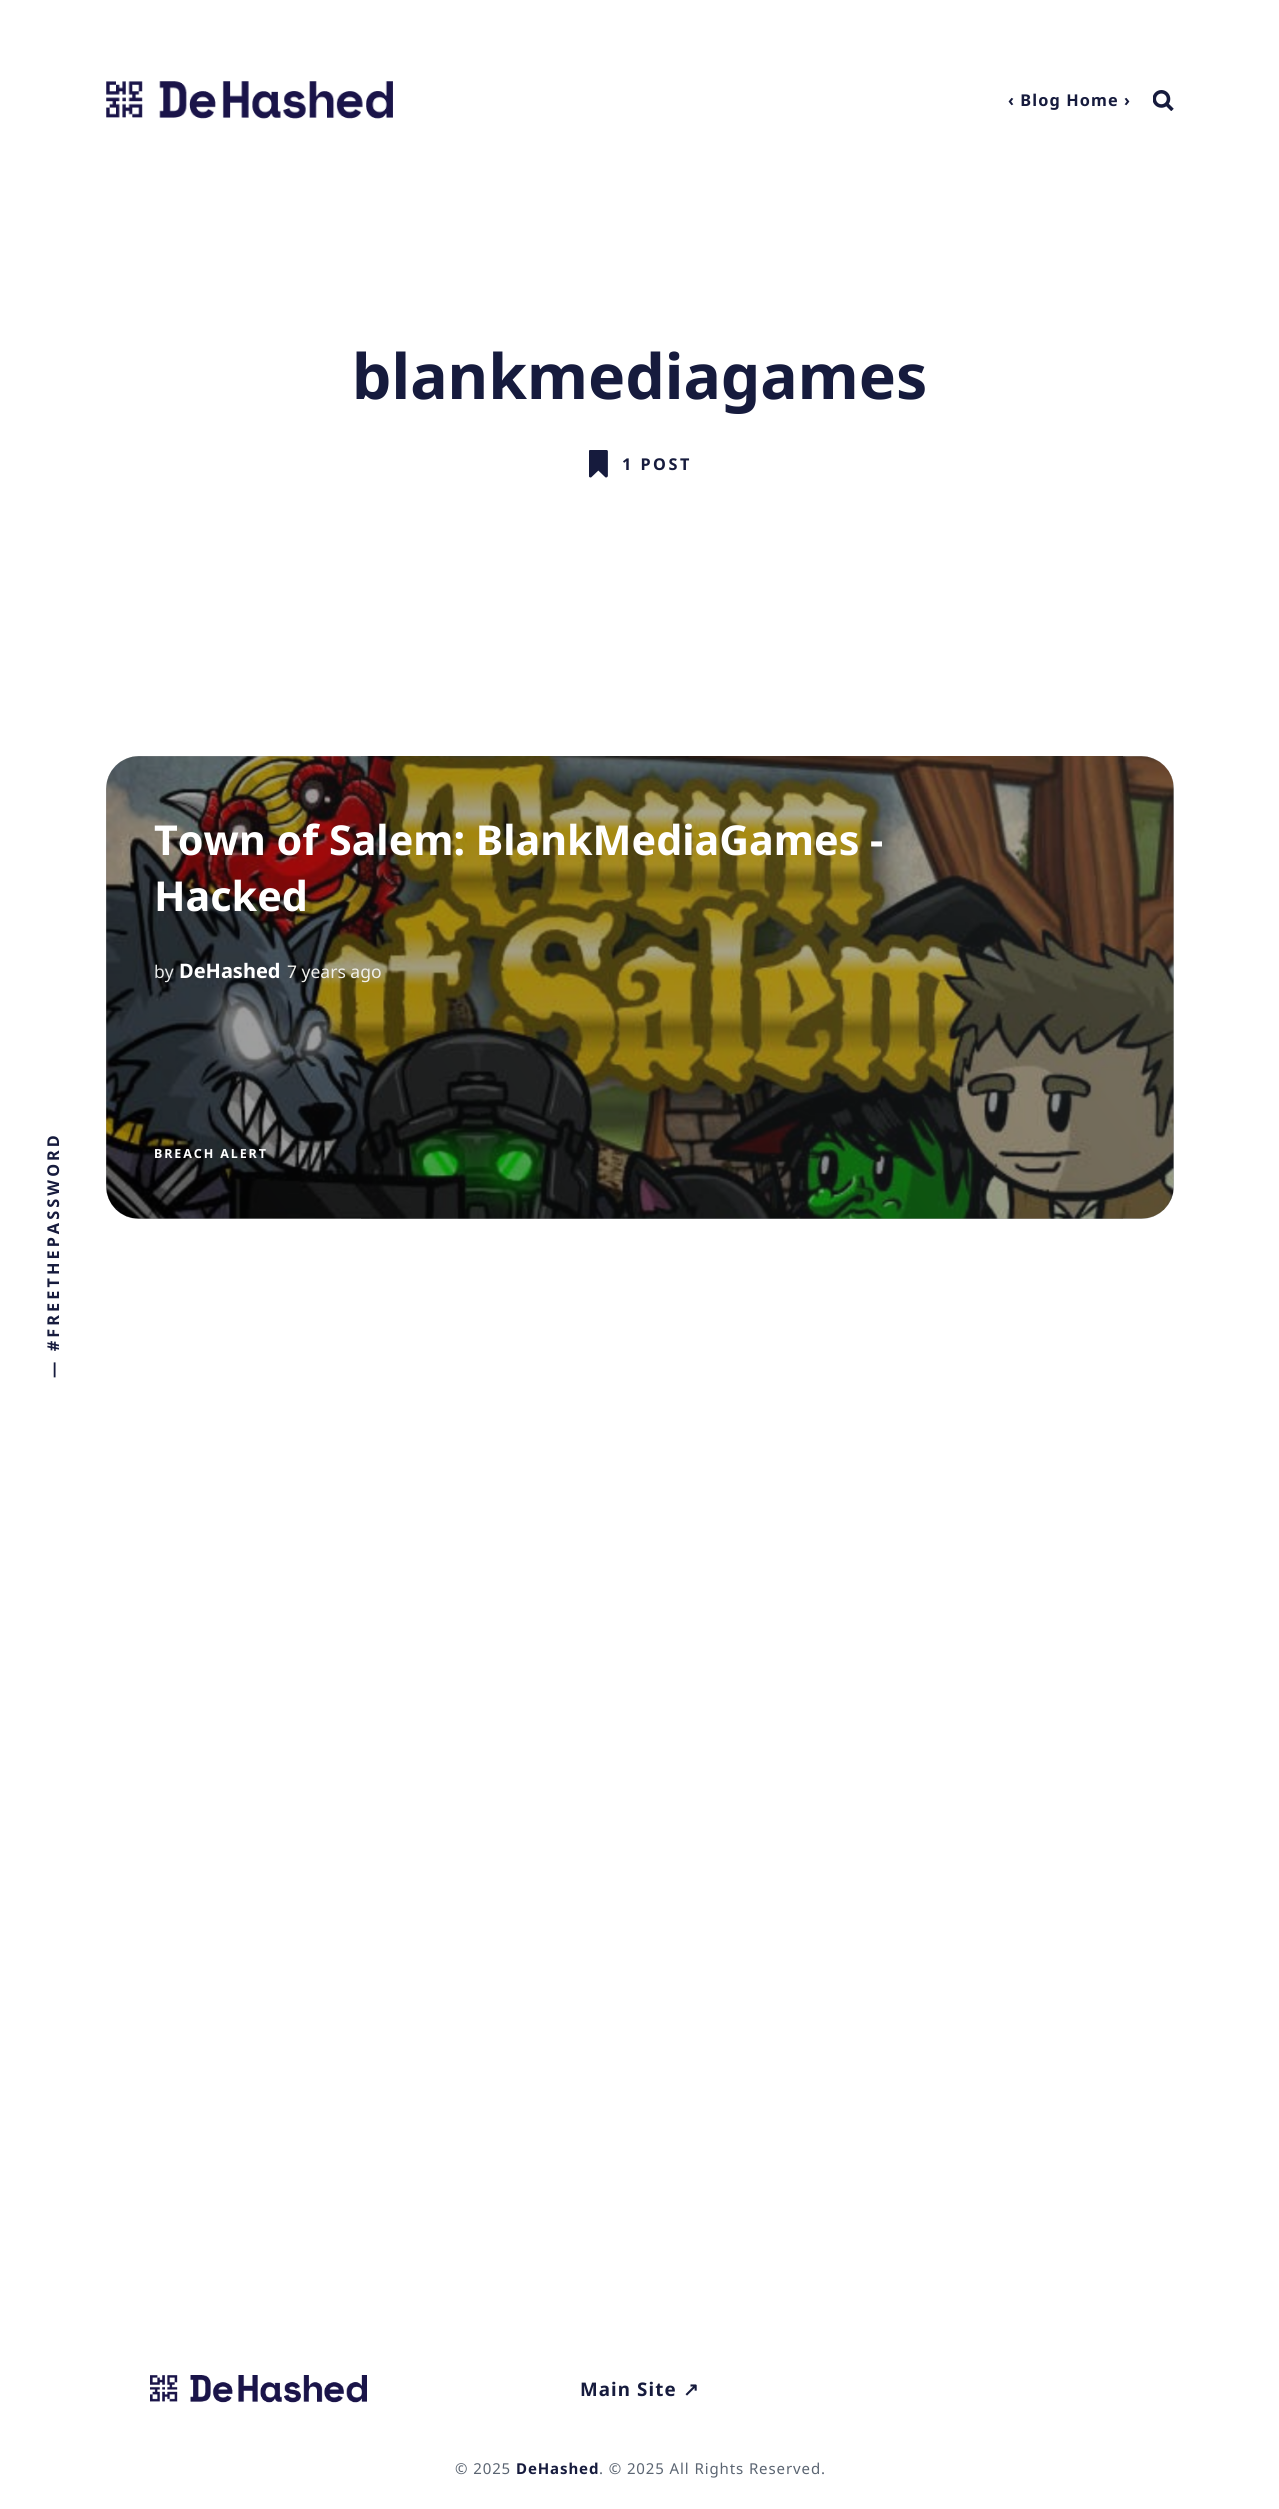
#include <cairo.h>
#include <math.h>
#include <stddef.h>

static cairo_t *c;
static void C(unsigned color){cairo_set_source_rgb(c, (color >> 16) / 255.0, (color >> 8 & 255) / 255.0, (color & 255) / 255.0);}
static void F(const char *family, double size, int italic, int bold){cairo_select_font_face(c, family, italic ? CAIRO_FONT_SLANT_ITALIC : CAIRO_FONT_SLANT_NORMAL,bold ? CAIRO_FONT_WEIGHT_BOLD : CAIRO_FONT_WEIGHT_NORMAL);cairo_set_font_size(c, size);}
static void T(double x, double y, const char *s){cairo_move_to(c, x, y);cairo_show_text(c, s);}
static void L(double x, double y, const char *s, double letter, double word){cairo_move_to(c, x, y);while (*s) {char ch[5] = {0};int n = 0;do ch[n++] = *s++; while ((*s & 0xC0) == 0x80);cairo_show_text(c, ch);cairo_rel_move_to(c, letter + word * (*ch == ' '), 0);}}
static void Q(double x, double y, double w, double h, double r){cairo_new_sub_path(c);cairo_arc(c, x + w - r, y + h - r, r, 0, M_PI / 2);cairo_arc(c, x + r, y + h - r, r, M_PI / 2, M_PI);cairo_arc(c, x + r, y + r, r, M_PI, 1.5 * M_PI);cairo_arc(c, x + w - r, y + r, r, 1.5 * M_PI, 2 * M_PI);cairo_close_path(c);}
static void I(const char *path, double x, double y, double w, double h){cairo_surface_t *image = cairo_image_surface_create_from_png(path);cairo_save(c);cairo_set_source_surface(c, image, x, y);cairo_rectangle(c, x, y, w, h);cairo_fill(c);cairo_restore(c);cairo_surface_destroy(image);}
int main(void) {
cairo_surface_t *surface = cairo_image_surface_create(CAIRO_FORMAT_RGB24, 1279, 2509);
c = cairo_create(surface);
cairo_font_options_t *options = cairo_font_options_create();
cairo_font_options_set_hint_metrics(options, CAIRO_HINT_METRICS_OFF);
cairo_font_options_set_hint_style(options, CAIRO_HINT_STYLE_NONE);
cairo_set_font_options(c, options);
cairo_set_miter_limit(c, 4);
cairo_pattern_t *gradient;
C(0xffffff);
cairo_paint(c);
I("1.png",106,81,287,38);
F("Noto Sans",16.25,0,1);
C(0x161b3d);
L(1008,106,"‹ Blog Home ›",1.1,0);
I("2.png",1153,90,21,21);
cairo_save(c);
cairo_translate(c,59,1378);
cairo_rotate(c,-90 * M_PI / 180);
L(0,0,"— #FREETHEPASSWORD",3.1,0);
cairo_restore(c);
F("Noto Sans",62.5,0,1);
T(352,399,"blankmediagames");
I("3.png",589,450,19,28);
F("Noto Sans",16.25,0,1);
L(622,470,"1 POST",2.5,0);
I("4.png",106,756,1068,463);
gradient = cairo_pattern_create_linear(1099,654,181,1321);
cairo_pattern_add_color_stop_rgba(gradient,0,0.224,0.259,0.271,.4);
cairo_pattern_add_color_stop_rgba(gradient,1,0,0,0,.4);
cairo_set_source(c,gradient);
cairo_pattern_destroy(gradient);
Q(106,756,1068,463,33);
cairo_fill(c);
F("Noto Sans",41.25,0,1);
C(0xffffff);
T(154,855,"Town of Salem: BlankMediaGames -");
T(154,911,"Hacked");
F("Noto Sans",17.5,0,0);
C(0xe8e9e9);
T(154,978,"by");
F("Noto Sans",20,0,1);
C(0xffffff);
T(179,978,"DeHashed");
F("Noto Sans",17.5,0,0);
C(0xf0f0ec);
T(287,978,"7 years ago");
F("Noto Sans",12.5,0,1);
C(0xffffff);
L(154,1158,"BREACH ALERT",1.9,0);
I("5.png",150,2375,217,28);
F("Noto Sans",18.75,0,1);
C(0x161b3d);
L(580,2396,"Main Site",1.1,0);
F("DejaVu Sans",18.75,0,1);
L(683,2396,"↗",1.1,0);
F("Noto Sans",15,0,0);
C(0x5b6572);
L(455,2474,"© 2025",.9,0);
F("Noto Sans",15,0,1);
C(0x161b3d);
L(516,2474,"DeHashed",.9,0);
F("Noto Sans",15,0,0);
C(0x5b6572);
L(599,2474,". © 2025 All Rights Reserved.",.9,0);
cairo_surface_write_to_png(surface, "o.png");
cairo_font_options_destroy(options);
cairo_destroy(c);
cairo_surface_destroy(surface);
return 0;
}
